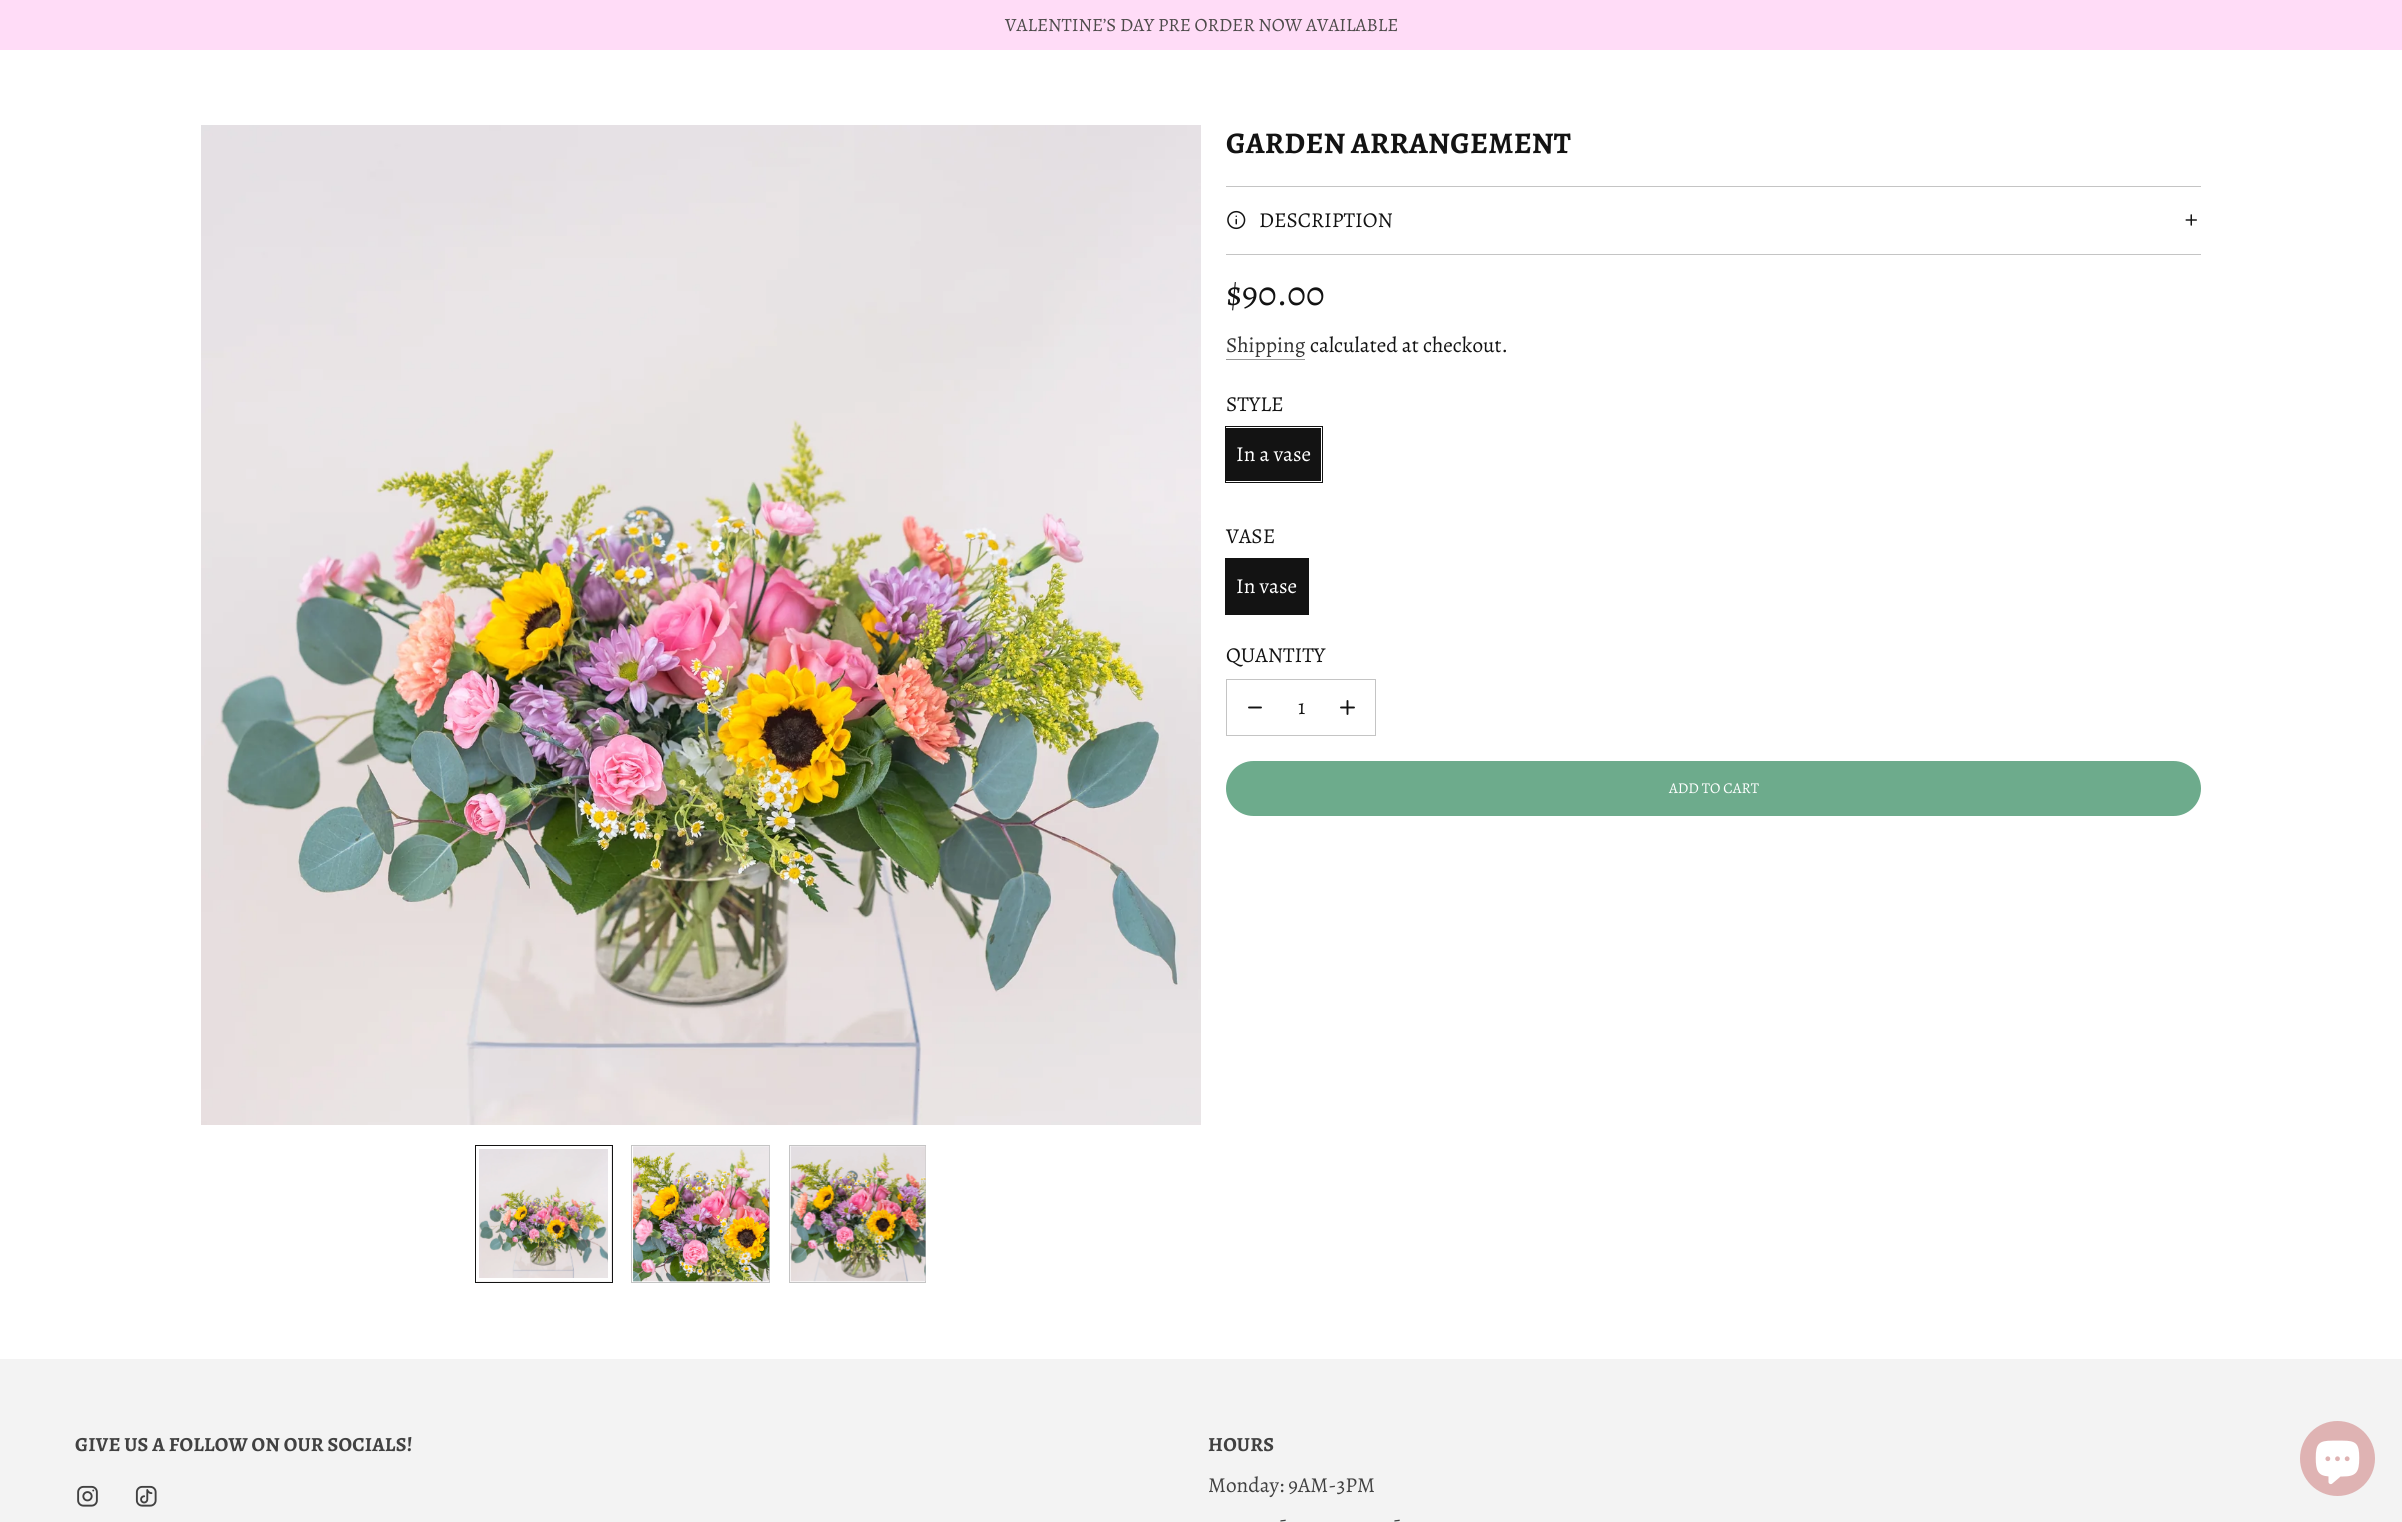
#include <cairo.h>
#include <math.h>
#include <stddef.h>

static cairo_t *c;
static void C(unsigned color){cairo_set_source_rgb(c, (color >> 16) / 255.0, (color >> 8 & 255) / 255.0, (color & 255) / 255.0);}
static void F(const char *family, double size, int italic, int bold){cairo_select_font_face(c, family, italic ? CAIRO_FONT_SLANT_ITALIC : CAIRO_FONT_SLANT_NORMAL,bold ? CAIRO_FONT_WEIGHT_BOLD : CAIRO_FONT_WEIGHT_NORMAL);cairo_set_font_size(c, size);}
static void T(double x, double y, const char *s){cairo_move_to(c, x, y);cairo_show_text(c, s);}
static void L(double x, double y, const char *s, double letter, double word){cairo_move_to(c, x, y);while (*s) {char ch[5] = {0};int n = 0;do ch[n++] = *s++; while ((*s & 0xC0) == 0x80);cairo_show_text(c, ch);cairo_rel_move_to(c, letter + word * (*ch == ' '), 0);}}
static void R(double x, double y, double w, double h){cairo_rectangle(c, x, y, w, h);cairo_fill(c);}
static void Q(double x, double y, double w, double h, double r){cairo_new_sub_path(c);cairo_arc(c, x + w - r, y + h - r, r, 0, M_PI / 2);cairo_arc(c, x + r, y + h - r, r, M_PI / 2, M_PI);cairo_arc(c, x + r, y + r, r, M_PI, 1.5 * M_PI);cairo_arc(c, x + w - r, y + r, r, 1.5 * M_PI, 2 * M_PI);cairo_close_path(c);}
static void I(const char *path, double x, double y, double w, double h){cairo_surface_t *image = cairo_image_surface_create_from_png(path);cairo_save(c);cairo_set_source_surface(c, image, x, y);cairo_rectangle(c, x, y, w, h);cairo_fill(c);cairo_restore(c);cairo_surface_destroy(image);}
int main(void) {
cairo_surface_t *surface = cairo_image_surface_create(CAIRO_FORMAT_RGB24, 2402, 1522);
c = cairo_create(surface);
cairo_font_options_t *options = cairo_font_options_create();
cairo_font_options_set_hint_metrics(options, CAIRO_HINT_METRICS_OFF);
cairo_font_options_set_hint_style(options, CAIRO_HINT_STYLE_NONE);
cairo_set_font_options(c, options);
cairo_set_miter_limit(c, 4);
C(0xffffff);
cairo_paint(c);
C(0xffdcf7);
R(0,0,2402,50);
F("Alegreya",18.75,0,0);
C(0x4d4a4a);
T(1005,31,"VALENTINE’S DAY PRE ORDER NOW AVAILABLE");
I("1.png",201,125,1000,1000);
cairo_rectangle(c,475.5,1145.5,137,137);
C(0x131313);
cairo_set_line_width(c,1);
cairo_stroke(c);
I("2.png",476,1146,136,136);
cairo_rectangle(c,477.5,1147.5,132,132);
C(0xffffff);
cairo_set_line_width(c,3);
cairo_stroke(c);
cairo_rectangle(c,631.5,1145.5,138,137);
C(0xc4c4c4);
cairo_set_line_width(c,1);
cairo_stroke(c);
I("3.png",633,1146,137,136);
cairo_rectangle(c,789.5,1145.5,136,137);
cairo_stroke(c);
I("4.png",790,1146,136,136);
F("Alegreya",30,0,1);
C(0x131313);
L(1226,153,"GARDEN ARRANGEMENT",.25,0);
C(0xc4c4c4);
R(1226,186,975,1);
R(1226,254,975,1);
I("5.png",1227,210,19,20);
F("Alegreya",21.25,0,0);
C(0x131313);
T(1259,227,"DESCRIPTION");
I("6.png",2185,214,12,12);
F("Alegreya",35,0,0);
T(1226,305,"$90.00");
F("Alegreya",21.25,0,0);
C(0x333333);
T(1226,352,"Shipping");
C(0x999999);
R(1226,359,79,1);
C(0x131313);
T(1310,352,"calculated at checkout.");
T(1226,411,"STYLE");
R(1226,428,95,53);
cairo_rectangle(c,1225.5,426.5,97,56);
cairo_stroke(c);
C(0xffffff);
T(1236,461,"In a vase");
C(0x131313);
T(1226,543,"VASE");
R(1226,559,82,55);
cairo_rectangle(c,1225.5,558.5,83,56);
cairo_stroke(c);
C(0xffffff);
T(1236,593,"In vase");
C(0x131313);
T(1226,662,"QUANTITY");
cairo_rectangle(c,1226.5,679.5,149,56);
C(0xc4c4c4);
cairo_stroke(c);
cairo_new_path(c);
cairo_move_to(c,1249,707.5);
cairo_line_to(c,1261,707.5);
C(0x131313);
cairo_set_line_width(c,1.9);
cairo_set_line_cap(c,CAIRO_LINE_CAP_ROUND);
cairo_set_line_join(c,CAIRO_LINE_JOIN_ROUND);
cairo_stroke(c);
T(1298,714,"1");
cairo_new_path(c);
cairo_move_to(c,1341,707.5);
cairo_line_to(c,1347.5,707.5);
cairo_move_to(c,1347.5,707.5);
cairo_line_to(c,1354,707.5);
cairo_move_to(c,1347.5,707.5);
cairo_line_to(c,1347.5,701);
cairo_move_to(c,1347.5,707.5);
cairo_line_to(c,1347.5,714);
cairo_stroke(c);
C(0x6dab8c);
Q(1226,761,975,55,27.5);
cairo_fill(c);
F("Alegreya",15,0,0);
C(0xffffff);
T(1669,793,"ADD TO CART");
C(0xf3f3f3);
R(0,1359,2402,163);
F("Alegreya",20,0,1);
C(0x414141);
L(75,1451,"GIVE US A FOLLOW ON OUR SOCIALS!",.2,0);
I("7.png",77,1485,21,22);
I("8.png",135,1485,22,22);
L(1208,1451,"HOURS",.2,0);
F("Alegreya",21.25,0,0);
T(1208,1492,"Monday: 9AM-3PM");
T(1279,1526,"-");
T(1393,1526,"-");
C(0xdfb3b3);
cairo_new_path(c);
cairo_arc(c,2337.5,1458.5,37.5,0,2 * M_PI);
cairo_fill(c);
I("9.png",2315,1440,45,45);
cairo_surface_write_to_png(surface, "o.png");
cairo_font_options_destroy(options);
cairo_destroy(c);
cairo_surface_destroy(surface);
return 0;
}
